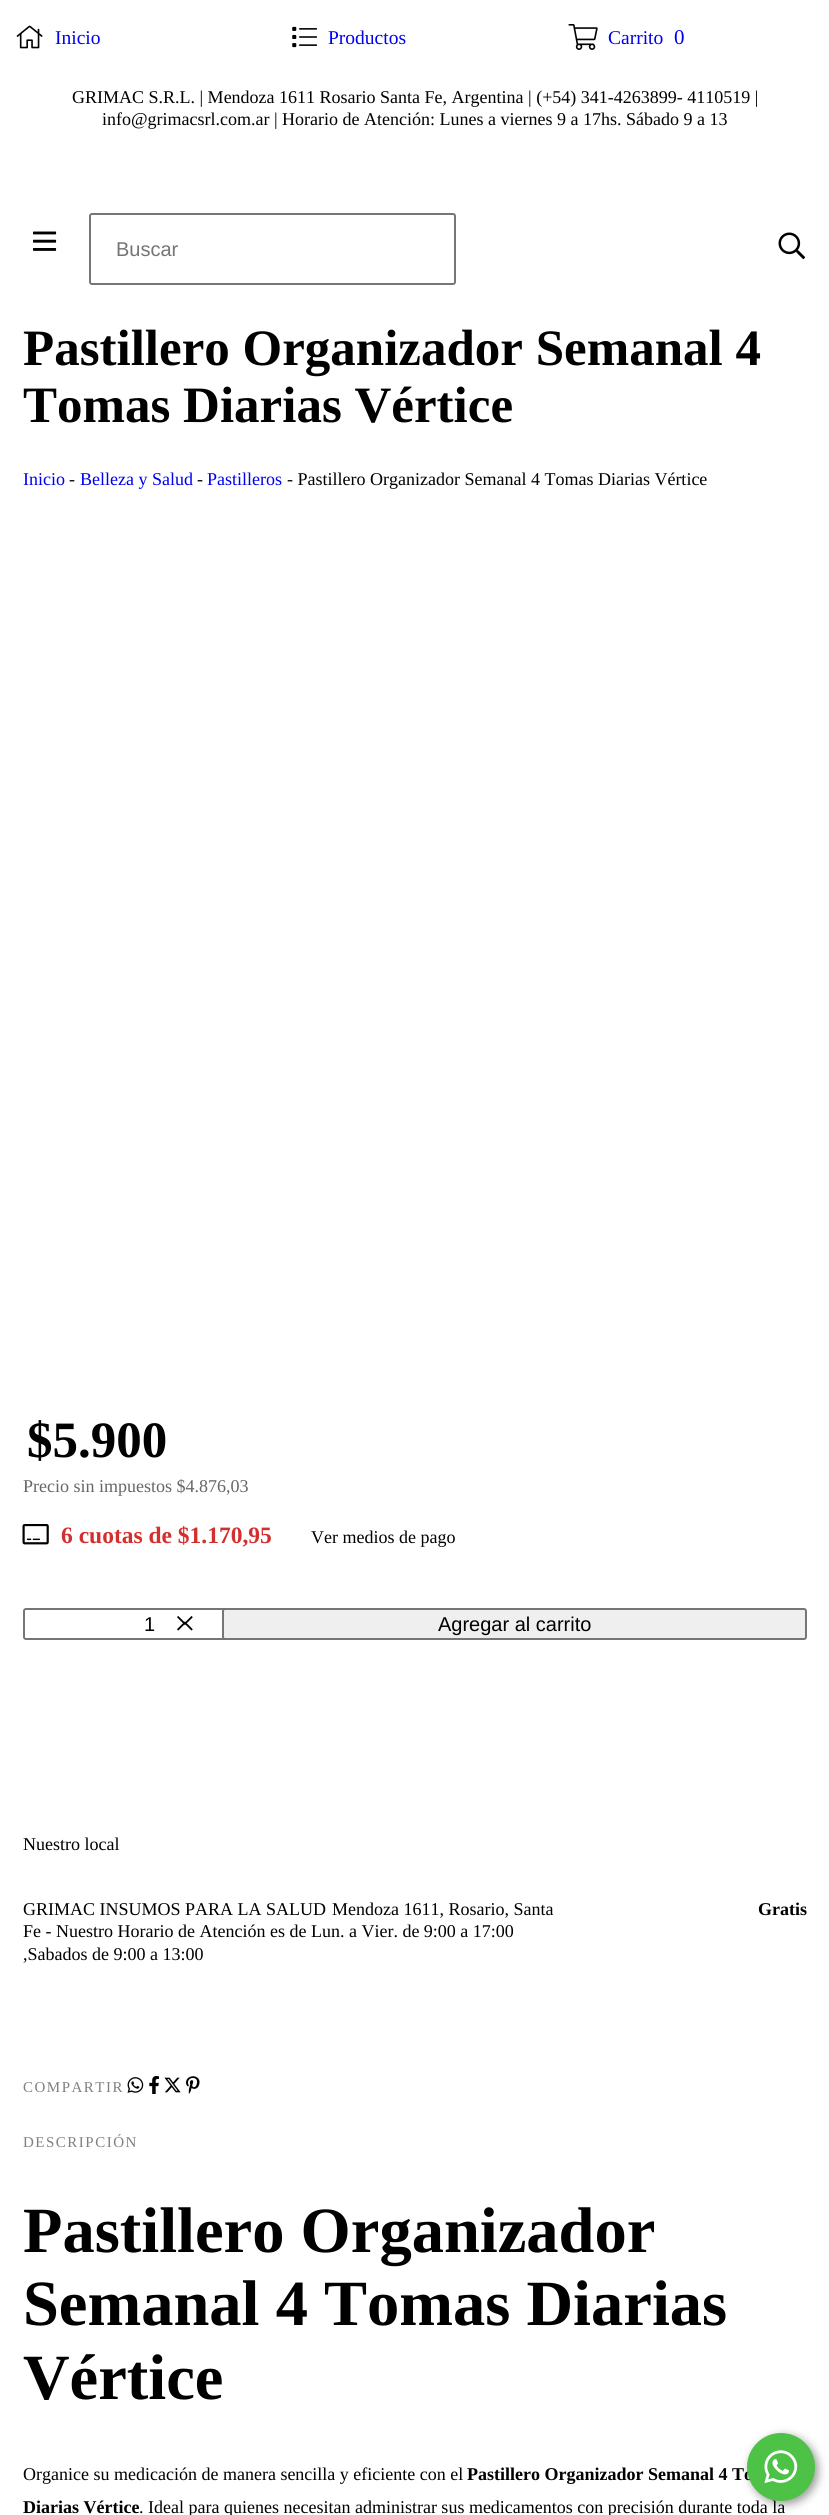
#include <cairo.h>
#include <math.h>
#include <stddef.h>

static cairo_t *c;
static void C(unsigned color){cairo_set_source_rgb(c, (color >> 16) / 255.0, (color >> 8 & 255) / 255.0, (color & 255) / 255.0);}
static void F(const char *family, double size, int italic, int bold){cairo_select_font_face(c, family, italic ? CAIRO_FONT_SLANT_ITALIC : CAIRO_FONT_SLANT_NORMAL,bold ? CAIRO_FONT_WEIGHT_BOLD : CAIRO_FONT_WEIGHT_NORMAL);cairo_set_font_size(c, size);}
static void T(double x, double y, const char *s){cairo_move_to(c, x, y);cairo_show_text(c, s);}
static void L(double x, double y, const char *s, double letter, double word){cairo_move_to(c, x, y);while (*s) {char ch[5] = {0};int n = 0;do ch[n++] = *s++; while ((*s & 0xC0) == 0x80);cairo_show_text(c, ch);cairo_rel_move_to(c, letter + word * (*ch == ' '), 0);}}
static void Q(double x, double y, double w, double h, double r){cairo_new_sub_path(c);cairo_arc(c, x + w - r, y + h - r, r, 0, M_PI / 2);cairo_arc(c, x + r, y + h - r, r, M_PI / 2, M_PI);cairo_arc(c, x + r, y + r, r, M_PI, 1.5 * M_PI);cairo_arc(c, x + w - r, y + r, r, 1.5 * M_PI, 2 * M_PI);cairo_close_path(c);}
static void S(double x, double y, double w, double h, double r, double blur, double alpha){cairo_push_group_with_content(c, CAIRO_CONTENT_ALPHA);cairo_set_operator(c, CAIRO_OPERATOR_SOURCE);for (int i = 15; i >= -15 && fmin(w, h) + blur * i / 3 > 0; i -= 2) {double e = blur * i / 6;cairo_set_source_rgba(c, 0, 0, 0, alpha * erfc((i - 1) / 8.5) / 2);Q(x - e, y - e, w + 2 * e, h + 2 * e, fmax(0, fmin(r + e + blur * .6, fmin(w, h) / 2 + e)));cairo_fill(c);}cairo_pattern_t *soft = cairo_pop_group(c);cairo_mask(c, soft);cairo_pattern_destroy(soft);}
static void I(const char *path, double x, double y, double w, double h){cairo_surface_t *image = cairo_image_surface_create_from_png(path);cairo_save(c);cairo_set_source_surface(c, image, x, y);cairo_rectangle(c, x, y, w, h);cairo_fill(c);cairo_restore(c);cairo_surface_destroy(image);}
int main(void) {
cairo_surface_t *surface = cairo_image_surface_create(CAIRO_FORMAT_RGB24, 829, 2515);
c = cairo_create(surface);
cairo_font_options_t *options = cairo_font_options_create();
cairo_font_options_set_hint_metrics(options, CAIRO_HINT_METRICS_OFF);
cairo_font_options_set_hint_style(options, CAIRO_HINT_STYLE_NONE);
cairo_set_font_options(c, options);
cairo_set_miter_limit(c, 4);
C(0xffffff);
cairo_paint(c);
I("1.png",16,25,27,24);
F("Liberation Serif",19.5,0,0);
C(0x0000ee);
T(55,44,"Inicio");
I("2.png",292,26,25,22);
T(328,44,"Productos");
I("3.png",568,24,30,26);
T(608,44,"Carrito");
F("Liberation Serif",21,0,0);
T(674,44,"0");
F("Liberation Serif",18,0,0);
C(0x000000);
T(72,103,"GRIMAC S.R.L. | Mendoza 1611 Rosario Santa Fe, Argentina | (+54) 341-4263899- 4110519 |");
T(102,125,"info@grimacsrl.com.ar | Horario de Atención: Lunes a viernes 9 a 17hs. Sábado 9 a 13");
I("4.png",33,231,24,20);
Q(90,214,365,70,2);
C(0x767676);
cairo_stroke(c);
F("Liberation Sans",20,0,0);
C(0x757575);
T(116,256,"Buscar");
I("5.png",778,232,28,28);
F("Liberation Serif",51,0,1);
C(0x000000);
T(23,365,"Pastillero Organizador Semanal 4");
T(23,422,"Tomas Diarias Vértice");
F("Liberation Serif",18,0,0);
C(0x0000ee);
T(23,485,"Inicio");
C(0x000000);
T(69,485,"-");
C(0x0000ee);
T(80,485,"Belleza y Salud");
C(0x000000);
T(197,485,"-");
C(0x0000ee);
T(207,485,"Pastilleros");
C(0x000000);
T(287,485,"- Pastillero Organizador Semanal 4 Tomas Diarias Vértice");
F("Liberation Serif",51,0,1);
T(27,1457,"$5.900");
F("Liberation Serif",18,0,0);
C(0x666666);
T(23,1492,"Precio sin impuestos $4.876,03");
I("6.png",22,1524,27,21);
F("Liberation Serif",23.5,0,1);
C(0xd32f2f);
T(61,1543,"6 cuotas de $1.170,95");
F("Liberation Serif",18,0,0);
C(0x000000);
T(311,1543,"Ver medios de pago");
Q(24,1609,275,30,2);
C(0x767676);
cairo_stroke(c);
F("Liberation Sans",20,0,0);
C(0x000000);
T(144,1631,"1");
I("7.png",177,1616,16,9);
I("8.png",177,1621,16,10);
C(0xefefef);
Q(223,1609,583,30,2);
cairo_fill_preserve(c);
C(0x767676);
cairo_stroke(c);
C(0x000000);
T(438,1631,"Agregar al carrito");
F("Liberation Serif",18,0,0);
T(23,1850,"Nuestro local");
T(23,1915,"GRIMAC INSUMOS PARA LA SALUD");
T(332,1915,"Mendoza 1611, Rosario, Santa");
T(23,1937,"Fe - Nuestro Horario de Atención es de Lun. a Vier. de 9:00 a 17:00");
T(23,1960,",Sabados de 9:00 a 13:00");
F("Liberation Serif",18,0,1);
T(758,1915,"Gratis");
F("Liberation Serif",15,0,0);
C(0x808080);
L(23,2092,"COMPARTIR",1.5,0);
I("9.png",127,2077,17,16);
I("10.png",149,2076,10,18);
I("11.png",164,2077,17,16);
I("12.png",186,2076,14,18);
L(23,2147,"DESCRIPCIÓN",1.5,0);
F("Liberation Serif",64.5,0,1);
C(0x000000);
T(23,2252,"Pastillero Organizador");
T(23,2325,"Semanal 4 Tomas Diarias");
T(23,2399,"Vértice");
F("Liberation Serif",18,0,0);
T(23,2480,"Organice su medicación de manera sencilla y eficiente con el");
F("Liberation Serif",18,0,1);
T(467,2480,"Pastillero Organizador Semanal 4 To");
T(23,2513,"Diarias Vértice");
F("Liberation Serif",18,0,0);
T(139,2513,". Ideal para quienes necesitan administrar sus medicamentos con precisión durante toda la");
C(0x000000);
S(750,2436,68,68,34,4.5,.4);
C(0x4dc247);
cairo_arc(c,781,2467,34,0,2 * M_PI);
cairo_fill(c);
I("13.png",764,2450,34,34);
cairo_surface_write_to_png(surface, "o.png");
cairo_font_options_destroy(options);
cairo_destroy(c);
cairo_surface_destroy(surface);
return 0;
}
